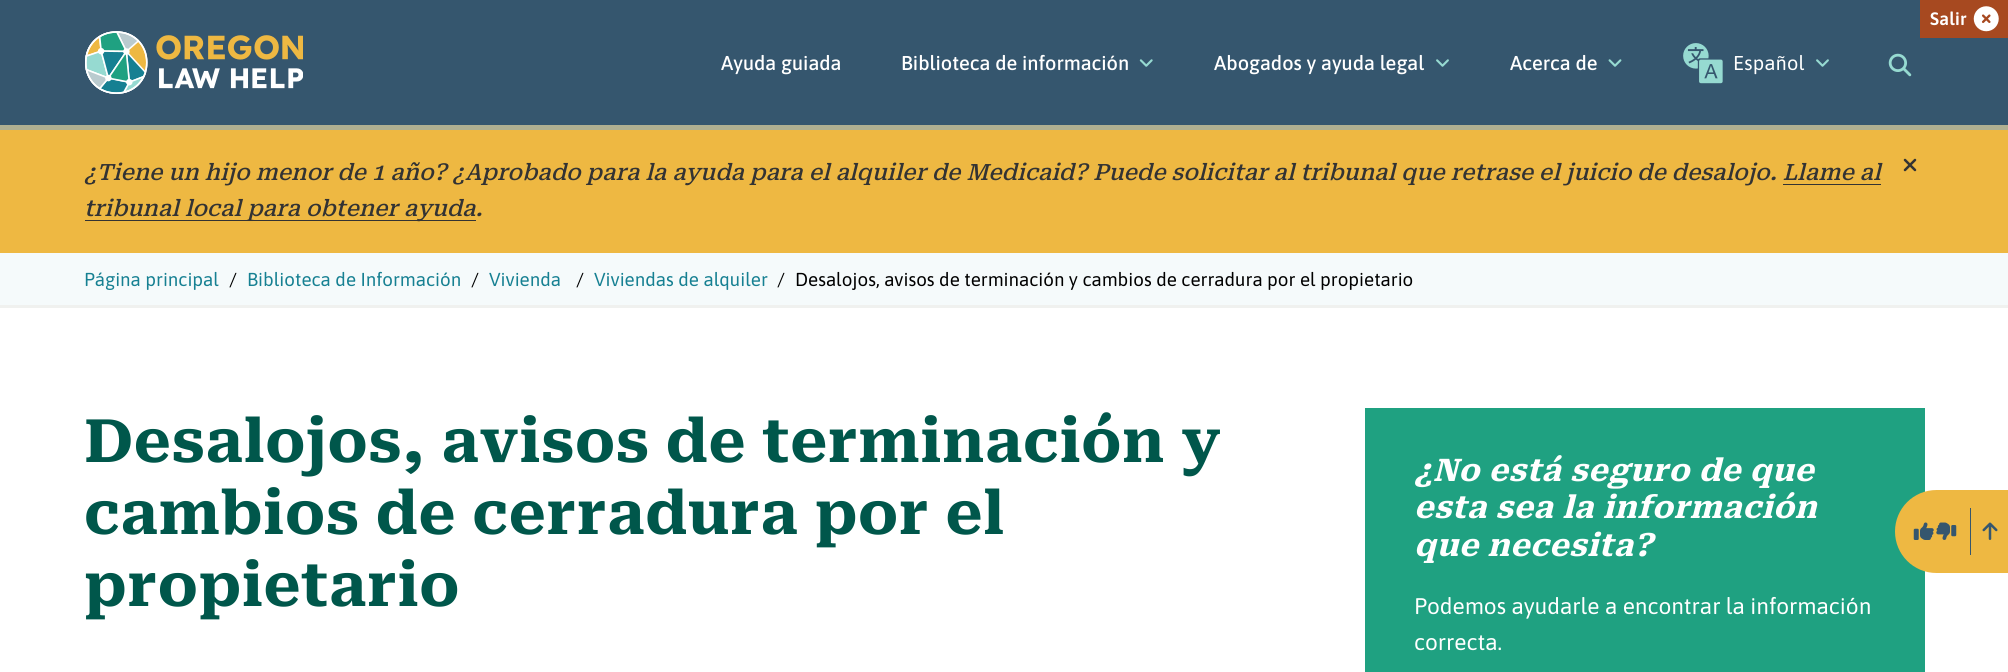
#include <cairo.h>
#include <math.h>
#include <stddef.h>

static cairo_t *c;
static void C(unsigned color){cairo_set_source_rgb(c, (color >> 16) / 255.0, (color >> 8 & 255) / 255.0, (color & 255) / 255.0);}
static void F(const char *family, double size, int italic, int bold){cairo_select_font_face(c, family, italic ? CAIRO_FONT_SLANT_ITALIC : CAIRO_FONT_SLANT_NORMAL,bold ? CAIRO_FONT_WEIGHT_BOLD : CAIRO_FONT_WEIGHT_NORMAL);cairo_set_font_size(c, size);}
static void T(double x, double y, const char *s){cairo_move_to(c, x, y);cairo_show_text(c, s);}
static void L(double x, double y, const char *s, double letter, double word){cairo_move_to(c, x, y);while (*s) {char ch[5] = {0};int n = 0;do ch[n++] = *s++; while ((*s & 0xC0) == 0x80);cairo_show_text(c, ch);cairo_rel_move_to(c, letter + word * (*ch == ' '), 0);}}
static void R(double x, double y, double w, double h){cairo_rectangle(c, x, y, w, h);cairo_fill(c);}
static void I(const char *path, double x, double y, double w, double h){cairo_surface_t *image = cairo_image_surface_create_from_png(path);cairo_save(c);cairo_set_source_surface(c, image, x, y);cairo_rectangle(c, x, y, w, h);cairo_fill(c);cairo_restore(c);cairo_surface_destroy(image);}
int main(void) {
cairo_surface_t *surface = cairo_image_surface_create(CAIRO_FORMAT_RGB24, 2008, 672);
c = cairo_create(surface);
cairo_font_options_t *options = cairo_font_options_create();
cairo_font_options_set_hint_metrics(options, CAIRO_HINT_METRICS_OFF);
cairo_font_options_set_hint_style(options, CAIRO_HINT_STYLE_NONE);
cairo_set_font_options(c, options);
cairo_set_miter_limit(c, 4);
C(0xffffff);
cairo_paint(c);
C(0x35566e);
R(0,0,2008,125);
C(0xafaf91);
R(0,125,2008,5);
C(0xa74920);
R(1920,0,88,38);
F("Asap SemiBold",18,0,0);
C(0xffffff);
L(1930,25,"Salir",.25,0);
I("1.png",1973,6,26,26);
I("2.png",85,31,218,63);
F("Asap Medium",20,0,0);
T(721,70,"Ayuda guiada");
T(901,70,"Biblioteca de información");
I("3.png",1139,59,14,8);
T(1214,70,"Abogados y ayuda legal");
I("4.png",1436,59,13,8);
T(1510,70,"Acerca de");
I("5.png",1608,59,14,8);
I("6.png",1683,43,40,41);
F("Asap",20,0,0);
L(1733,70,"Español",.25,0);
I("4.png",1816,59,13,8);
I("7.png",1888,53,24,24);
C(0xeeb842);
R(0,130,2008,123);
F("Roboto Serif Medium",22.5,1,0);
C(0x333333);
T(84,180,"¿Tiene un hijo menor de 1 año? ¿Aprobado para la ayuda para el alquiler de Medicaid? Puede solicitar al tribunal que retrase el juicio de desalojo. Llame al");
R(85,220,391,1);
T(84,216,"tribunal local para obtener ayuda.");
R(1783,184,98,1);
I("8.png",1903,158,14,14);
C(0xf5fafb);
R(0,253,2008,52);
C(0xf0f1ef);
R(0,305,2008,3);
F("Asap",18.75,0,0);
C(0x168092);
T(84,286,"Página principal");
C(0x000000);
T(229,286,"/");
C(0x168092);
T(247,286,"Biblioteca de Información");
C(0x000000);
T(471,286,"/");
C(0x168092);
T(489,286,"Vivienda");
C(0x000000);
T(576,286,"/");
C(0x168092);
T(594,286,"Viviendas de alquiler");
C(0x000000);
T(777,286,"/");
T(795,286,"Desalojos, avisos de terminación y cambios de cerradura por el propietario");
F("Roboto Serif",60,0,1);
C(0x00574b);
L(84,462,"Desalojos, avisos de terminación y",.6,0);
L(84,534,"cambios de cerradura por el",.6,0);
L(84,606,"propietario",.6,0);
C(0x1fa181);
R(1365,408,560,264);
F("Roboto Serif",31.25,1,1);
C(0xffffff);
L(1414,481,"¿No está seguro de que",.6,0);
L(1414,518,"esta sea la información",.6,0);
L(1414,556,"que necesita?",.6,0);
F("Asap",22.6,0,0);
T(1414,614,"Podemos ayudarle a encontrar la información");
T(1414,650,"correcta.");
C(0xeeb842);
cairo_new_path(c);
cairo_move_to(c,1936.5,490);
cairo_line_to(c,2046,490);
cairo_line_to(c,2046,573);
cairo_line_to(c,1936.5,573);
cairo_curve_to(c,1913.5,573,1895,554.5,1895,531.5);
cairo_curve_to(c,1895,508.5,1913.5,490,1936.5,490);
cairo_close_path(c);
cairo_fill(c);
I("9.png",1913,522,21,18);
I("10.png",1936,522,21,18);
C(0x35566e);
R(1970,508,1,47);
I("11.png",1982,522,16,18);
cairo_surface_write_to_png(surface, "o.png");
cairo_font_options_destroy(options);
cairo_destroy(c);
cairo_surface_destroy(surface);
return 0;
}
